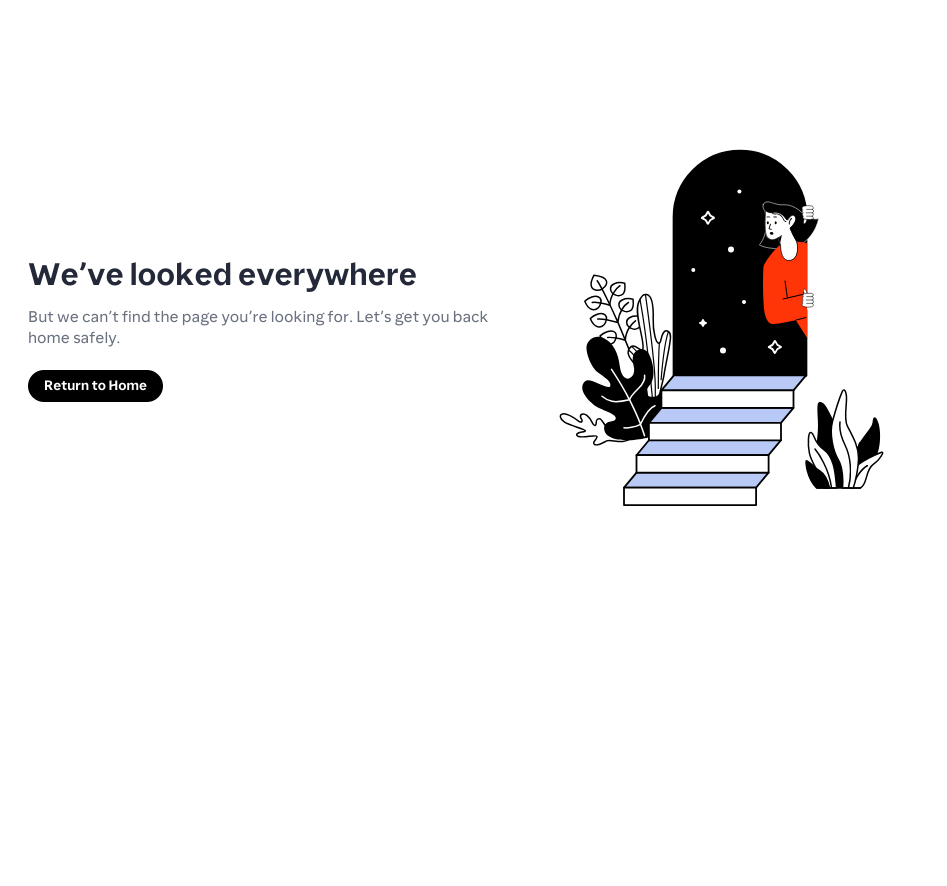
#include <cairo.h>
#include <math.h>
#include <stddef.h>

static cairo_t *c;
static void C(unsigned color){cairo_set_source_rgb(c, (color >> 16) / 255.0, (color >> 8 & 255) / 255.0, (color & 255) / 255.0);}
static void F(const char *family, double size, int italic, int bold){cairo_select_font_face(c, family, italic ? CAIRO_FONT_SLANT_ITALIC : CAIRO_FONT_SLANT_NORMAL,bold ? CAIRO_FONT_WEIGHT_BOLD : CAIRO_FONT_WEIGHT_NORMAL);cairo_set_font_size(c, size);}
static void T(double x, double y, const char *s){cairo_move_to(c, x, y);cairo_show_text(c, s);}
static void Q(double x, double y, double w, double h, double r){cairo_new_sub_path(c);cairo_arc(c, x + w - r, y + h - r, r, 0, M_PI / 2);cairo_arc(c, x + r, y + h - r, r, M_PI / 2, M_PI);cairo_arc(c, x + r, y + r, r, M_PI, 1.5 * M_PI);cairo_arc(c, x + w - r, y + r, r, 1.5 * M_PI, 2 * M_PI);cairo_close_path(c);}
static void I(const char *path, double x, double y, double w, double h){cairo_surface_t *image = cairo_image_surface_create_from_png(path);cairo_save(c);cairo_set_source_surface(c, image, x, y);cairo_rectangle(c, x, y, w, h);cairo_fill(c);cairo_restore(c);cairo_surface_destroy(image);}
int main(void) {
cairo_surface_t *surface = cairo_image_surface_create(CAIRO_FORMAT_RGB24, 947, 886);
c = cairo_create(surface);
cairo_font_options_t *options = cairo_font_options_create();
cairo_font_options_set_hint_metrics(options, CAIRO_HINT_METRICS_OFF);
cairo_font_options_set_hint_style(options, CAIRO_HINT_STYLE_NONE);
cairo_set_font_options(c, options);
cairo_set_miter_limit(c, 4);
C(0xffffff);
cairo_paint(c);
F("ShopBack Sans",32,0,1);
C(0x232938);
T(28,285,"We’ve looked everywhere");
F("ShopBack Sans",16,0,0);
C(0x6a717f);
T(28,322,"But we can’t find the page you’re looking for. Let’s get you back");
T(28,343,"home safely.");
C(0x000000);
Q(28,370,135,32,16);
cairo_fill(c);
F("ShopBack Sans",14,0,1);
C(0xffffff);
T(44,390,"Return to Home");
I("1.png",559,149,325,357);
cairo_surface_write_to_png(surface, "o.png");
cairo_font_options_destroy(options);
cairo_destroy(c);
cairo_surface_destroy(surface);
return 0;
}
